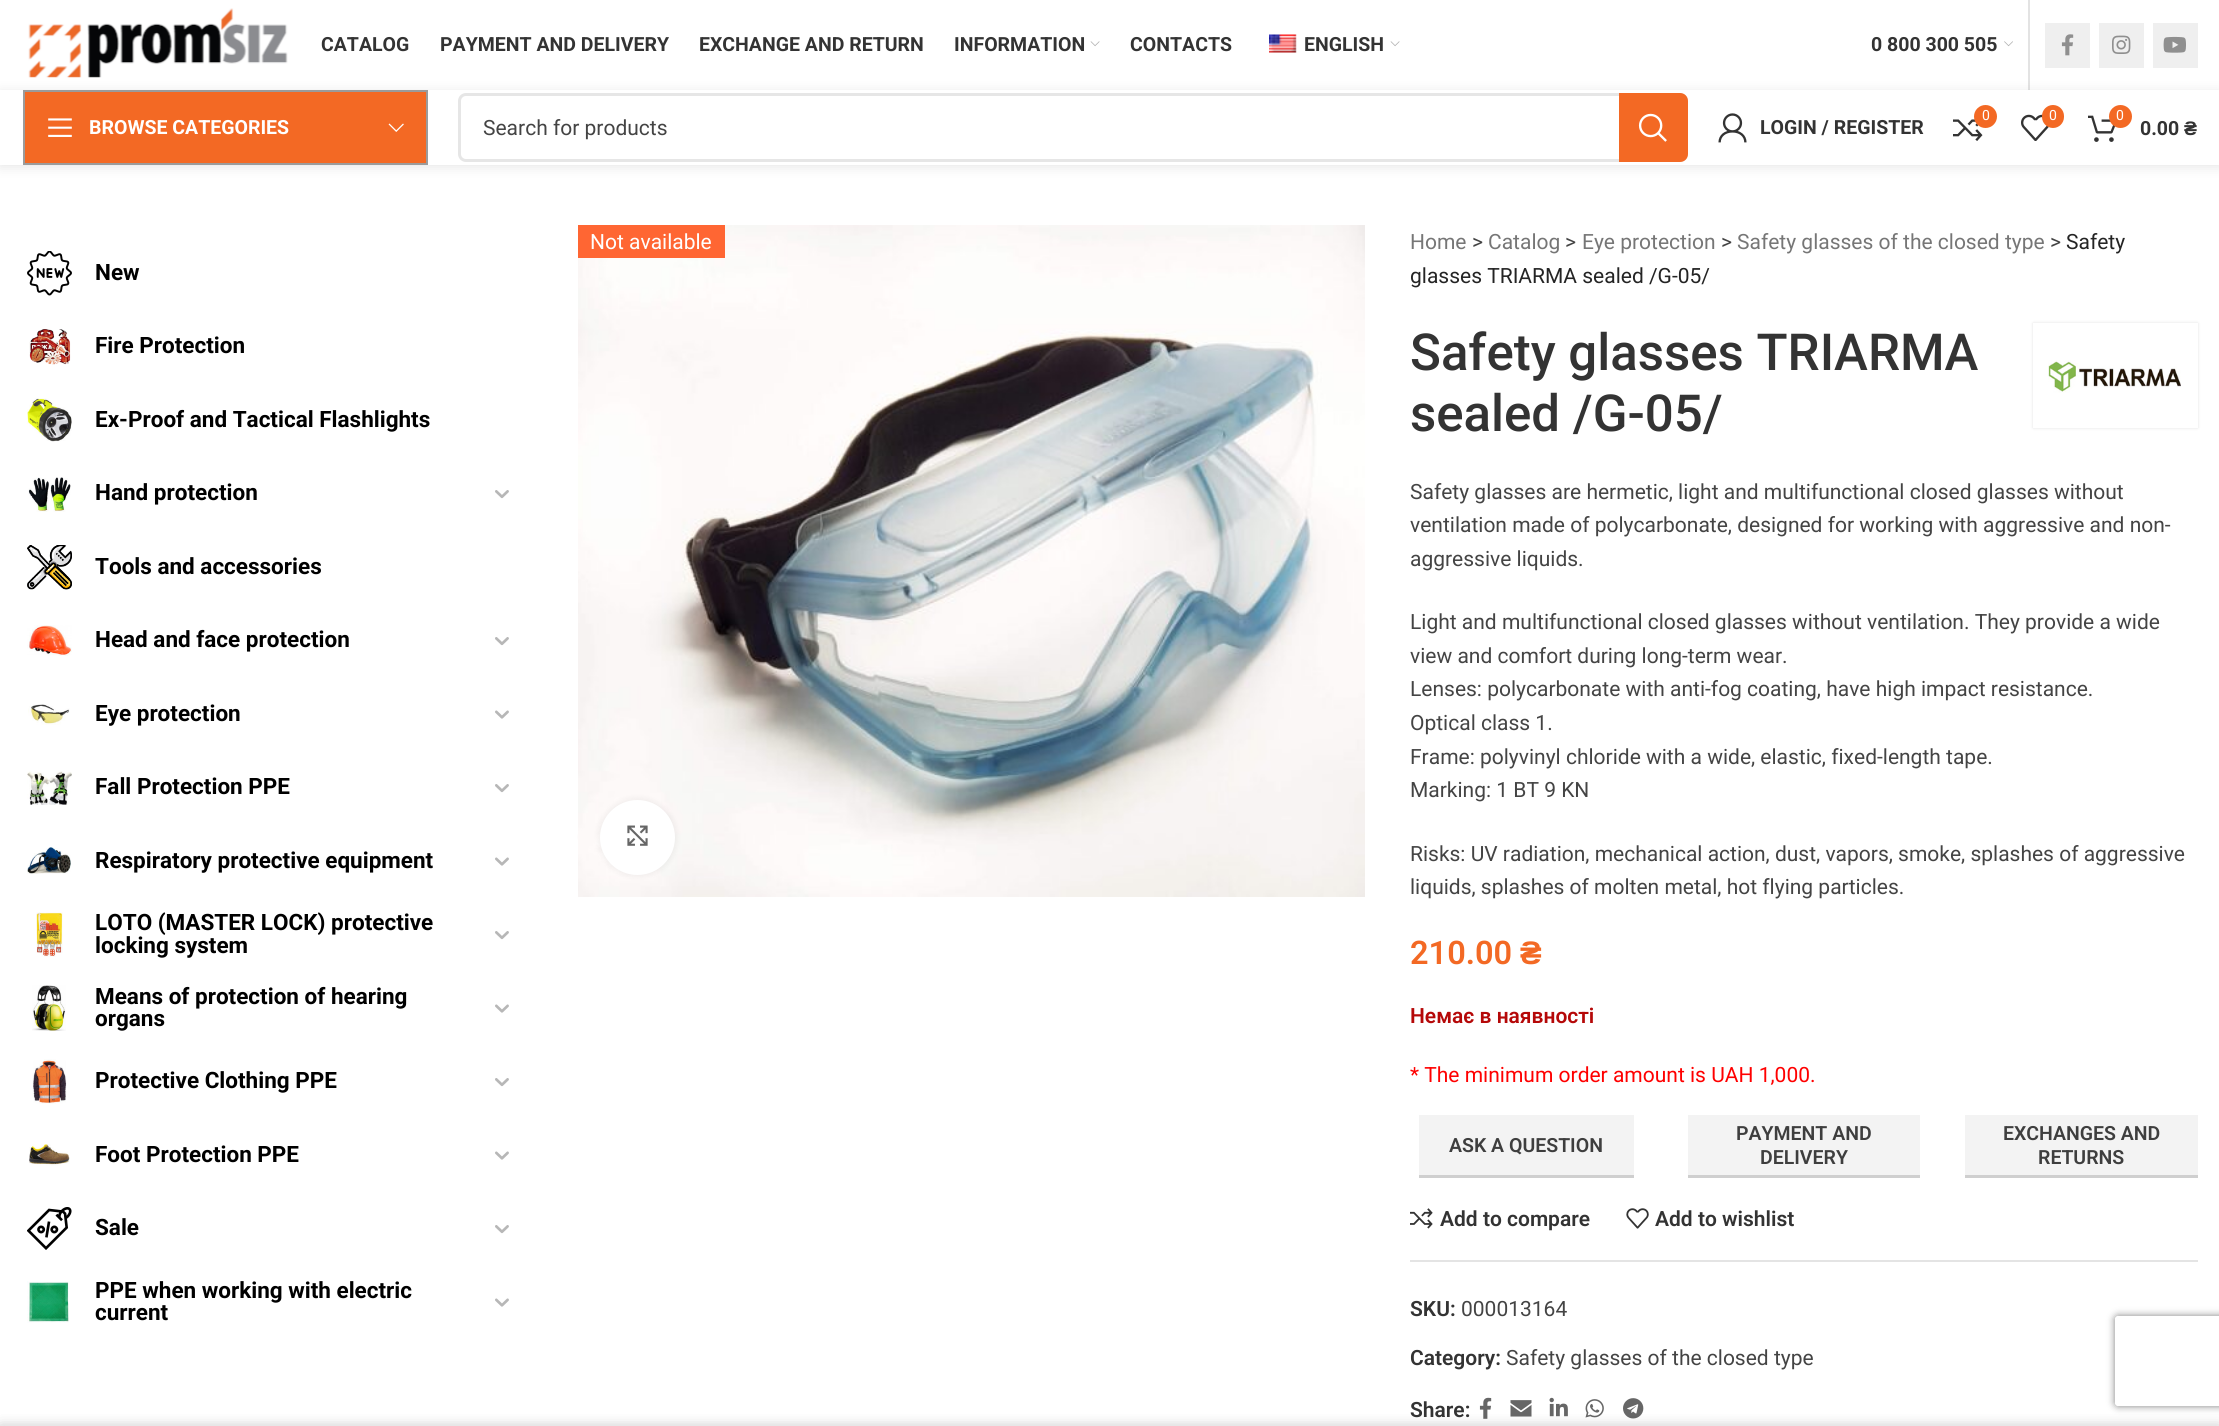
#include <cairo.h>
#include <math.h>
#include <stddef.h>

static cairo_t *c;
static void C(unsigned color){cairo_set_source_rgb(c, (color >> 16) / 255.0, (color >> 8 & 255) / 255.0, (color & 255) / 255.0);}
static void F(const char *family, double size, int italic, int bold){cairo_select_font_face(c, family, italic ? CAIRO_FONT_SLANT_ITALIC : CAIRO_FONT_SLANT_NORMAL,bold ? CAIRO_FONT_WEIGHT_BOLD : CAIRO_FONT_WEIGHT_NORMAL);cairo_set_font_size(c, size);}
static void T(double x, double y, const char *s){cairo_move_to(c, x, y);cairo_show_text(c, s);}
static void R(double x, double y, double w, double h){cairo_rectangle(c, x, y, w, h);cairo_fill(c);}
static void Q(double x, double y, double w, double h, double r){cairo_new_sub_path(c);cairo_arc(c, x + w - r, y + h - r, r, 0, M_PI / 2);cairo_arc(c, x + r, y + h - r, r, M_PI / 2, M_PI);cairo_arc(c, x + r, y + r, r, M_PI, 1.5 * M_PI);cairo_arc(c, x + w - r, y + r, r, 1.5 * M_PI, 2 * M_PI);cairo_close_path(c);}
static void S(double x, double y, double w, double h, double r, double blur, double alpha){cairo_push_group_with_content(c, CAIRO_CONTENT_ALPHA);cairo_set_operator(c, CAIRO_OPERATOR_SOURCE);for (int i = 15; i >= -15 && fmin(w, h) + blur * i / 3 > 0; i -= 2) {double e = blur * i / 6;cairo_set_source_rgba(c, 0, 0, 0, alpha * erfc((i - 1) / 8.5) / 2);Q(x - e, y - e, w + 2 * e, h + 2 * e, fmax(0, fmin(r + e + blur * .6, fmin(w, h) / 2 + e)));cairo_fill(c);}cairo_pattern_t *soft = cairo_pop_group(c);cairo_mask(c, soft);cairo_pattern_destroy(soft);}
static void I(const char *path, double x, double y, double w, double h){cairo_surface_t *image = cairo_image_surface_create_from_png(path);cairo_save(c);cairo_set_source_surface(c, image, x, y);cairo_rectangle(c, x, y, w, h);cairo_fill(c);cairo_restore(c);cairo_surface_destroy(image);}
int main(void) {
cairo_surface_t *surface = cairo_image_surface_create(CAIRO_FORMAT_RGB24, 2219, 1426);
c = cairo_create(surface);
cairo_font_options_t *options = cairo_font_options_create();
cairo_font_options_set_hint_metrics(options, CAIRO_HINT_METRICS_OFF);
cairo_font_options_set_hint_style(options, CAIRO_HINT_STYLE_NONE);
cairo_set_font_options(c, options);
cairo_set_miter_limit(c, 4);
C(0xffffff);
cairo_paint(c);
C(0x000000);
S(0,92,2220,75,0,6,.1);
I("1.png",28,8,260,70);
F("Roboto",19.5,0,1);
C(0x333333);
T(321,51,"CATALOG");
T(440,51,"PAYMENT AND DELIVERY");
T(699,51,"EXCHANGE AND RETURN");
T(954,51,"INFORMATION");
I("2.png",1090,41,10,6);
T(1130,51,"CONTACTS");
I("3.png",1269,34,28,19);
T(1304,51,"ENGLISH");
I("2.png",1390,41,10,6);
T(1871,51,"0 800 300 505");
I("4.png",2004,41,9,6);
cairo_set_source_rgba(c,0,0,0,0.11);
R(2028,0,2,90);
C(0xefefef);
R(2045,23,45,45);
I("5.png",2061,34,13,22);
R(2099,23,45,45);
I("6.png",2112,35,19,19);
R(2153,23,45,45);
I("7.png",2163,36,23,17);
C(0xffffff);
R(0,90,2219,75);
C(0xf36924);
cairo_rectangle(c,24,91,403,73);
cairo_fill_preserve(c);
C(0x9b9b9b);
cairo_stroke(c);
I("8.png",48,118,24,19);
C(0xffffff);
T(89,134,"BROWSE CATEGORIES");
I("9.png",388,123,16,9);
Q(459.5,94.5,1227,66,6.5);
C(0xe6e6e6);
cairo_set_line_width(c,3);
cairo_stroke(c);
F("Roboto",21,0,0);
C(0x444444);
T(483,135,"Search for products");
C(0xf36924);
cairo_new_path(c);
cairo_move_to(c,1619,93);
cairo_line_to(c,1680,93);
cairo_curve_to(c,1684.5,93,1688,96.5,1688,101);
cairo_line_to(c,1688,154);
cairo_curve_to(c,1688,158.5,1684.5,162,1680,162);
cairo_line_to(c,1619,162);
cairo_close_path(c);
cairo_fill(c);
I("10.png",1638,113,29,29);
I("11.png",1718,113,29,30);
F("Roboto",19.5,0,1);
C(0x333333);
T(1760,134,"LOGIN / REGISTER");
I("12.png",1953,119,30,22);
C(0xf36924);
cairo_arc(c,1985.5,116.5,11.5,0,2 * M_PI);
cairo_fill(c);
F("Roboto",14,0,0);
C(0xffffff);
T(1982,120,"0");
I("13.png",2021,114,28,27);
C(0xf36924);
Q(2042,105,22,23,11);
cairo_fill(c);
C(0xffffff);
T(2049,120,"0");
I("14.png",2088,115,28,27);
C(0xf36924);
cairo_arc(c,2120.5,116.5,11.5,0,2 * M_PI);
cairo_fill(c);
C(0xffffff);
T(2116,120,"0");
F("Roboto",19.5,0,1);
C(0x333333);
T(2140,135,"0.00");
F("Liberation Sans",19.5,0,1);
T(2184,135,"₴");
I("15.png",27,251,45,45);
F("Roboto",22.5,0,1);
C(0x000000);
T(95,280,"New");
I("16.png",29,329,42,36);
T(95,353,"Fire Protection");
I("17.png",27,398,45,44);
T(95,427,"Ex-Proof and Tactical Flashlights");
I("18.png",28,477,43,35);
T(95,500,"Hand protection");
I("19.png",495,490,14,9);
I("20.png",27,545,45,45);
T(95,574,"Tools and accessories");
I("21.png",27,625,45,31);
T(95,647,"Head and face protection");
I("19.png",495,637,14,9);
I("22.png",28,704,42,21);
T(95,721,"Eye protection");
I("23.png",495,710,14,9);
I("24.png",27,771,45,34);
T(95,794,"Fall Protection PPE");
I("19.png",495,784,14,9);
I("25.png",27,847,44,27);
T(95,868,"Respiratory protective equipment");
I("23.png",495,857,14,9);
I("26.png",36,912,27,45);
T(95,930,"LOTO (MASTER LOCK) protective");
T(95,953,"locking system");
I("19.png",495,931,14,9);
I("27.png",32,985,34,46);
T(95,1004,"Means of protection of hearing");
T(95,1026,"organs");
I("23.png",495,1004,14,9);
I("28.png",32,1059,35,45);
T(95,1088,"Protective Clothing PPE");
I("19.png",495,1078,14,9);
I("29.png",29,1144,41,22);
T(95,1162,"Foot Protection PPE");
I("23.png",495,1151,14,9);
I("30.png",27,1207,45,43);
T(95,1235,"Sale");
I("19.png",495,1225,14,9);
I("31.png",27,1281,42,42);
T(95,1298,"PPE when working with electric");
T(95,1320,"current");
I("23.png",495,1298,14,9);
I("32.png",578,225,787,672);
C(0xff6633);
R(578,225,147,33);
F("Roboto",21,0,0);
C(0xffffff);
T(590,249,"Not available");
C(0x000000);
S(600,800,75,75,37.5,4,.08);
C(0xffffff);
cairo_arc(c,637.5,837.5,37.5,0,2 * M_PI);
cairo_fill(c);
cairo_new_path(c);
cairo_move_to(c,582,846);
cairo_curve_to(c,577,841,577,833,582,828);
C(0xfdf9f8);
cairo_set_line_width(c,1.5);
cairo_stroke(c);
I("33.png",627,825,21,21);
C(0x767676);
T(1410,249,"Home");
C(0x444444);
T(1472,249,">");
C(0x767676);
T(1488,249,"Catalog");
C(0x444444);
T(1565,249,">");
C(0x767676);
T(1582,249,"Eye protection");
C(0x444444);
T(1721,249,">");
C(0x767676);
T(1737,249,"Safety glasses of the closed type");
C(0x444444);
T(2050,249,">");
C(0x242424);
T(2066,249,"Safety");
T(1410,283,"glasses TRIARMA sealed /G-05/");
F("Roboto Medium",51,0,0);
C(0x333333);
T(1410,370,"Safety glasses TRIARMA");
T(1410,431,"sealed /G-05/");
C(0x000000);
S(2033,323,165,105,0,1.5,.12);
C(0xffffff);
R(2033,323,165,105);
I("34.png",2048,360,133,33);
F("Roboto",21,0,0);
C(0x444444);
T(1410,499,"Safety glasses are hermetic, light and multifunctional closed glasses without");
T(1410,532,"ventilation made of polycarbonate, designed for working with aggressive and non-");
T(1410,566,"aggressive liquids.");
T(1410,629,"Light and multifunctional closed glasses without ventilation. They provide a wide");
T(1410,663,"view and comfort during long-term wear.");
T(1410,696,"Lenses: polycarbonate with anti-fog coating, have high impact resistance.");
T(1410,730,"Optical class 1.");
T(1410,764,"Frame: polyvinyl chloride with a wide, elastic, fixed-length tape.");
T(1410,797,"Marking: 1 ВТ 9 KN");
T(1410,861,"Risks: UV radiation, mechanical action, dust, vapors, smoke, splashes of aggressive");
T(1410,894,"liquids, splashes of molten metal, hot flying particles.");
F("Roboto SemiBold",32.5,0,0);
C(0xf36924);
T(1410,964,"210.00");
F("Liberation Sans",32.5,0,1);
T(1520,964,"₴");
F("Roboto SemiBold",21,0,0);
C(0xb50808);
T(1410,1023,"Немає в наявності");
F("Roboto",21,0,0);
C(0xff0000);
T(1410,1082,"* The minimum order amount is UAH 1,000.");
C(0xf3f3f3);
R(1419,1115,215,60);
C(0xcfcfcf);
R(1419,1175,215,3);
F("Roboto SemiBold",19.5,0,0);
C(0x3e3e3e);
T(1449,1152,"ASK A QUESTION");
C(0xf3f3f3);
R(1688,1115,232,60);
C(0xcfcfcf);
R(1688,1175,232,3);
C(0x3e3e3e);
T(1736,1140,"PAYMENT AND");
T(1760,1164,"DELIVERY");
C(0xf3f3f3);
R(1965,1115,233,60);
C(0xcfcfcf);
R(1965,1175,233,3);
C(0x3e3e3e);
T(2003,1140,"EXCHANGES AND");
T(2038,1164,"RETURNS");
I("35.png",1410,1208,23,21);
F("Roboto SemiBold",21,0,0);
C(0x333333);
T(1440,1226,"Add to compare");
I("36.png",1626,1208,23,21);
T(1655,1226,"Add to wishlist");
C(0xe4e4e4);
R(1410,1260,788,2);
C(0x333333);
T(1410,1316,"SKU:");
F("Roboto",21,0,0);
C(0x444444);
T(1461,1316,"000013164");
F("Roboto SemiBold",21,0,0);
C(0x333333);
T(1410,1365,"Category:");
F("Roboto",21,0,0);
C(0x444444);
T(1506,1365,"Safety glasses of the closed type");
F("Roboto SemiBold",21,0,0);
C(0x333333);
T(1410,1417,"Share:");
I("37.png",1479,1397,13,22);
I("38.png",1510,1400,22,17);
I("39.png",1549,1397,19,20);
I("40.png",1585,1399,19,19);
I("41.png",1623,1398,21,21);
cairo_save(c);
cairo_set_fill_rule(c,CAIRO_FILL_RULE_EVEN_ODD);
cairo_new_path(c);
cairo_move_to(c,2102,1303);
cairo_line_to(c,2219,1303);
cairo_line_to(c,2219,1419);
cairo_line_to(c,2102,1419);
cairo_close_path(c);
cairo_move_to(c,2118,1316);
cairo_line_to(c,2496,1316);
cairo_curve_to(c,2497.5,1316,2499,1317.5,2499,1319);
cairo_line_to(c,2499,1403);
cairo_curve_to(c,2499,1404.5,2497.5,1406,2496,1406);
cairo_line_to(c,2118,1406);
cairo_curve_to(c,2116.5,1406,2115,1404.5,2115,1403);
cairo_line_to(c,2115,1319);
cairo_curve_to(c,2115,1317.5,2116.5,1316,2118,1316);
cairo_close_path(c);
cairo_clip(c);
C(0x808080);
S(2115,1316,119,90,3,4,1);
cairo_restore(c);
C(0x000000);
S(0,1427,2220,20,0,7,.12);
S(0,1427,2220,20,0,7,.14);
cairo_surface_write_to_png(surface, "o.png");
cairo_font_options_destroy(options);
cairo_destroy(c);
cairo_surface_destroy(surface);
return 0;
}
